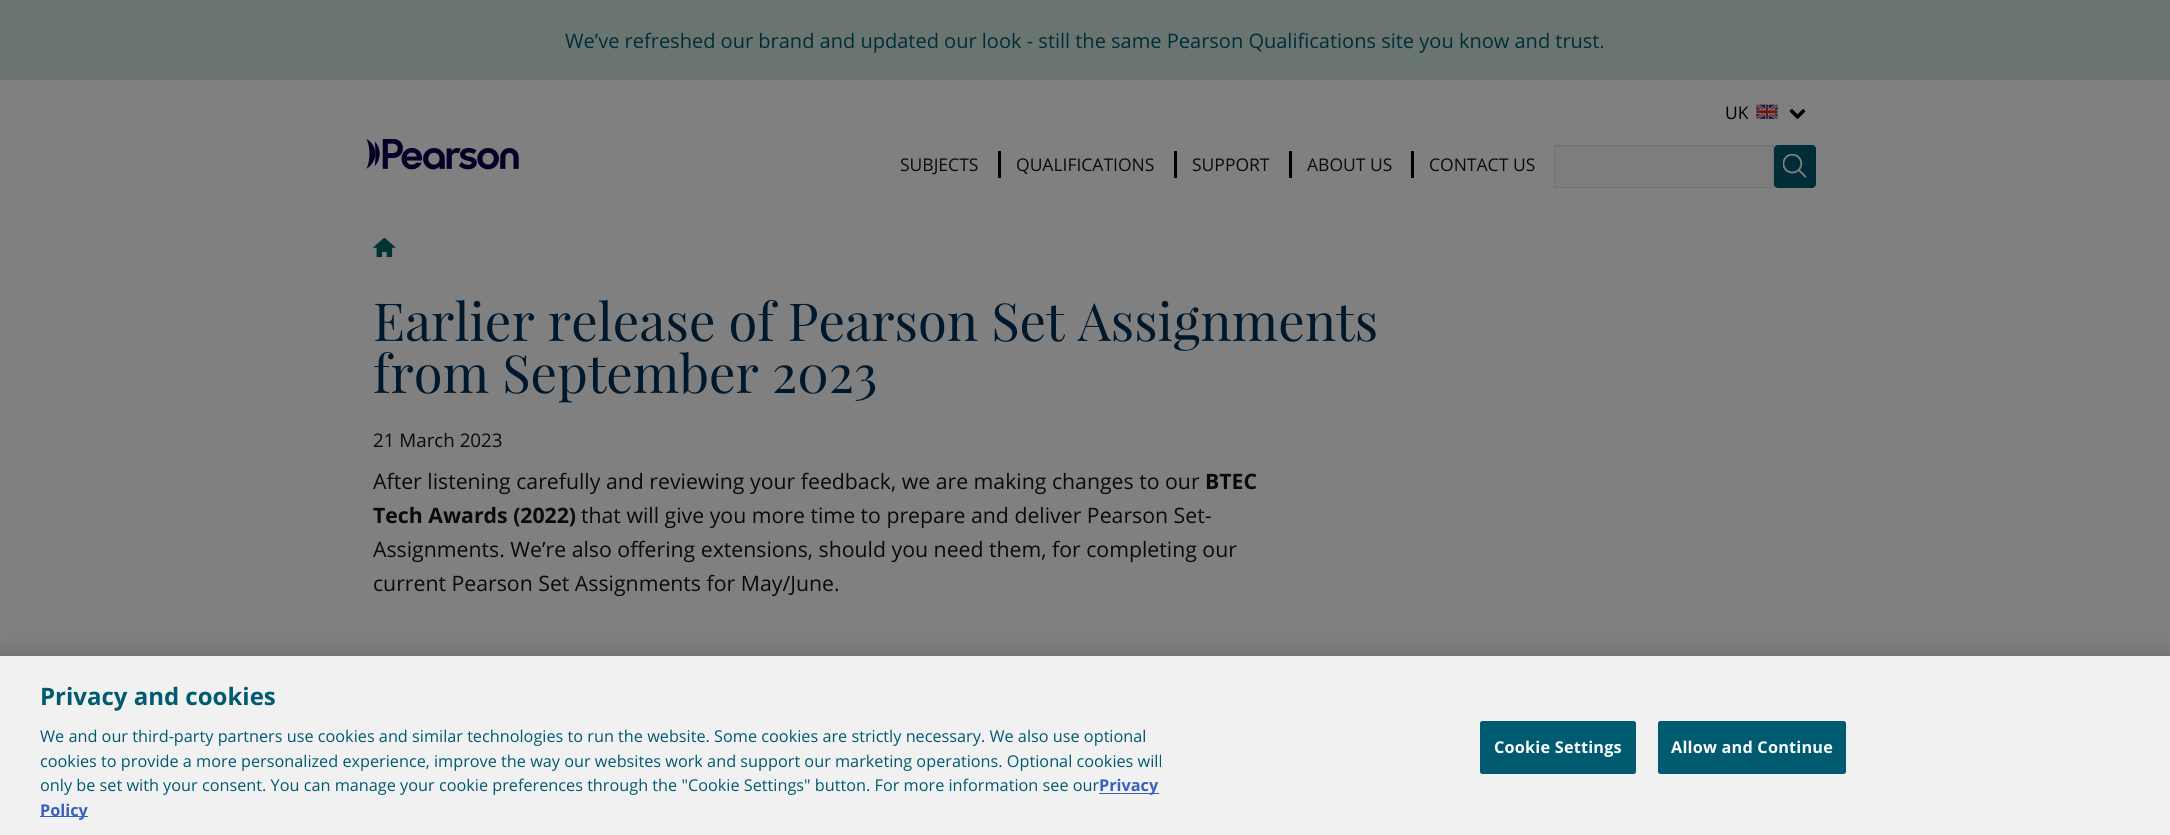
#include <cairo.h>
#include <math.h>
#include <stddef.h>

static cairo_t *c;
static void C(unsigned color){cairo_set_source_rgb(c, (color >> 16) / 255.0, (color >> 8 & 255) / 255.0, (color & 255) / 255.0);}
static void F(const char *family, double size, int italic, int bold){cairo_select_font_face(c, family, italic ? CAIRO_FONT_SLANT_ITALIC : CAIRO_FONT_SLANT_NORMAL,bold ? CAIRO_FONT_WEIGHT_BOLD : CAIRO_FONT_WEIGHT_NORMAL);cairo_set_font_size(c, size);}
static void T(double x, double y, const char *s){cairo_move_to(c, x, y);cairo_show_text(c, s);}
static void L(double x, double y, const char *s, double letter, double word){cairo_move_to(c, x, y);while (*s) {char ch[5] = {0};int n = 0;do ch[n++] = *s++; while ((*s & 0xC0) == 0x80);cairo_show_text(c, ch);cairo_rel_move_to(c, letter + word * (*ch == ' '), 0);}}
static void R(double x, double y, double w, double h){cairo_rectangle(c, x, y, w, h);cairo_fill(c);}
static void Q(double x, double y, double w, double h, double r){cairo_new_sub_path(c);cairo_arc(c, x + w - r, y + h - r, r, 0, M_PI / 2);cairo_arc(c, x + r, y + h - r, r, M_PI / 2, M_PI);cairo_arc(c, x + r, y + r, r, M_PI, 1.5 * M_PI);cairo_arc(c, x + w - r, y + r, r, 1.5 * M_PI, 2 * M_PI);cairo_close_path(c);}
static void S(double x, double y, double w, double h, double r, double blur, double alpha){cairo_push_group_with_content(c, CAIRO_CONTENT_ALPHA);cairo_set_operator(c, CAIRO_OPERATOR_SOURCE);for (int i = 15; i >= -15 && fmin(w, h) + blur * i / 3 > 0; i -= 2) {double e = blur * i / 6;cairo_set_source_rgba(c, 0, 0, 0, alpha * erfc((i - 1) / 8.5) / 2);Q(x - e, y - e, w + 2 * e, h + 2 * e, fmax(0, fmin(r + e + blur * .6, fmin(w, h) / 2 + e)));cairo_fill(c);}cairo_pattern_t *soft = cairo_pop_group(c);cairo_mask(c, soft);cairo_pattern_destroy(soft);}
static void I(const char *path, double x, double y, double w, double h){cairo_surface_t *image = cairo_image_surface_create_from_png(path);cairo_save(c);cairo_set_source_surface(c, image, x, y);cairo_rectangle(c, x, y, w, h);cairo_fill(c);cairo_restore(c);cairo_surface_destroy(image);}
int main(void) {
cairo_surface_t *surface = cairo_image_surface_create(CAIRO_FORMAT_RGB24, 2170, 835);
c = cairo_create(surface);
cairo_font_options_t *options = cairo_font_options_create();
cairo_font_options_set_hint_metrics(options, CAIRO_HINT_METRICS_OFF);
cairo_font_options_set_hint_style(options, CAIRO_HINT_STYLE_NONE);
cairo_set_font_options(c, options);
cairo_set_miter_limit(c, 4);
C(0x808080);
cairo_paint(c);
C(0x6a7572);
R(0,0,2170,80);
F("Open Sans",20,0,0);
C(0x002d38);
T(565,48,"We’ve refreshed our brand and updated our look - still the same Pearson Qualifications site you know and trust.");
F("Open Sans",17.5,0,0);
C(0x000000);
T(1725,119,"UK");
I("1.png",1756,104,22,15);
I("2.png",1789,109,17,10);
I("3.png",366,139,153,31);
C(0x0a0a0a);
T(900,171,"SUBJECTS");
C(0x000000);
R(998,151,3,27);
C(0x0a0a0a);
T(1016,171,"QUALIFICATIONS");
C(0x000000);
R(1174,151,3,27);
C(0x0a0a0a);
T(1192,171,"SUPPORT");
C(0x000000);
R(1289,151,3,27);
C(0x0a0a0a);
T(1307,171,"ABOUT US");
C(0x000000);
R(1411,151,3,27);
C(0x0a0a0a);
T(1429,171,"CONTACT US");
C(0x7d7d7d);
R(1555,147,218,40);
C(0x747474);
R(1555,146,218,1);
cairo_rectangle(c,1554.5,145.5,219,42);
C(0x737373);
cairo_set_line_width(c,1);
cairo_stroke(c);
C(0x002d38);
Q(1774,145,42,43,4);
cairo_fill(c);
I("4.png",1783,154,24,24);
I("5.png",373,238,23,20);
F("Playfair Display",52.5,0,0);
C(0x00182c);
T(373,341,"Earlier release of Pearson Set Assignments");
T(373,393,"from September 2023");
F("Open Sans",18.75,0,0);
C(0x0a0a0a);
T(373,447,"21 March 2023");
F("Open Sans",21.25,0,0);
T(373,489,"After listening carefully and reviewing your feedback, we are making changes to our");
F("Open Sans",21.25,0,1);
T(1205,489,"BTEC");
T(373,523,"Tech Awards (2022)");
F("Open Sans",21.25,0,0);
T(581,523,"that will give you more time to prepare and deliver Pearson Set-");
T(373,557,"Assignments. We’re also offering extensions, should you need them, for completing our");
T(373,591,"current Pearson Set Assignments for May/June.");
C(0x000000);
S(0,656,2170,179,0,11,.2);
C(0xf1f1f1);
R(0,656,2170,179);
F("Open Sans",24,0,1);
C(0x005a70);
T(40,705,"Privacy and cookies");
F("Open Sans",16.25,0,0);
T(40,742,"We and our third-party partners use cookies and similar technologies to run the website. Some cookies are strictly necessary. We also use optional");
T(40,767,"cookies to provide a more personalized experience, improve the way our websites work and support our marketing operations. Optional cookies will");
T(40,791,"only be set with your consent. You can manage your cookie preferences through the \"Cookie Settings\" button. For more information see our");
C(0x3860be);
R(1099,793,60,1);
F("Open Sans",16.25,0,1);
T(1099,791,"Privacy");
R(40,816,48,1);
T(40,816,"Policy");
C(0x005a70);
Q(1480.5,721.5,155,52,2);
cairo_fill_preserve(c);
cairo_stroke(c);
C(0xffffff);
L(1494,753,"Cookie Settings",.2,0);
C(0x005a70);
Q(1658.5,721.5,187,52,2);
cairo_fill_preserve(c);
cairo_stroke(c);
C(0xffffff);
L(1671,753,"Allow and Continue",.2,0);
cairo_surface_write_to_png(surface, "o.png");
cairo_font_options_destroy(options);
cairo_destroy(c);
cairo_surface_destroy(surface);
return 0;
}
